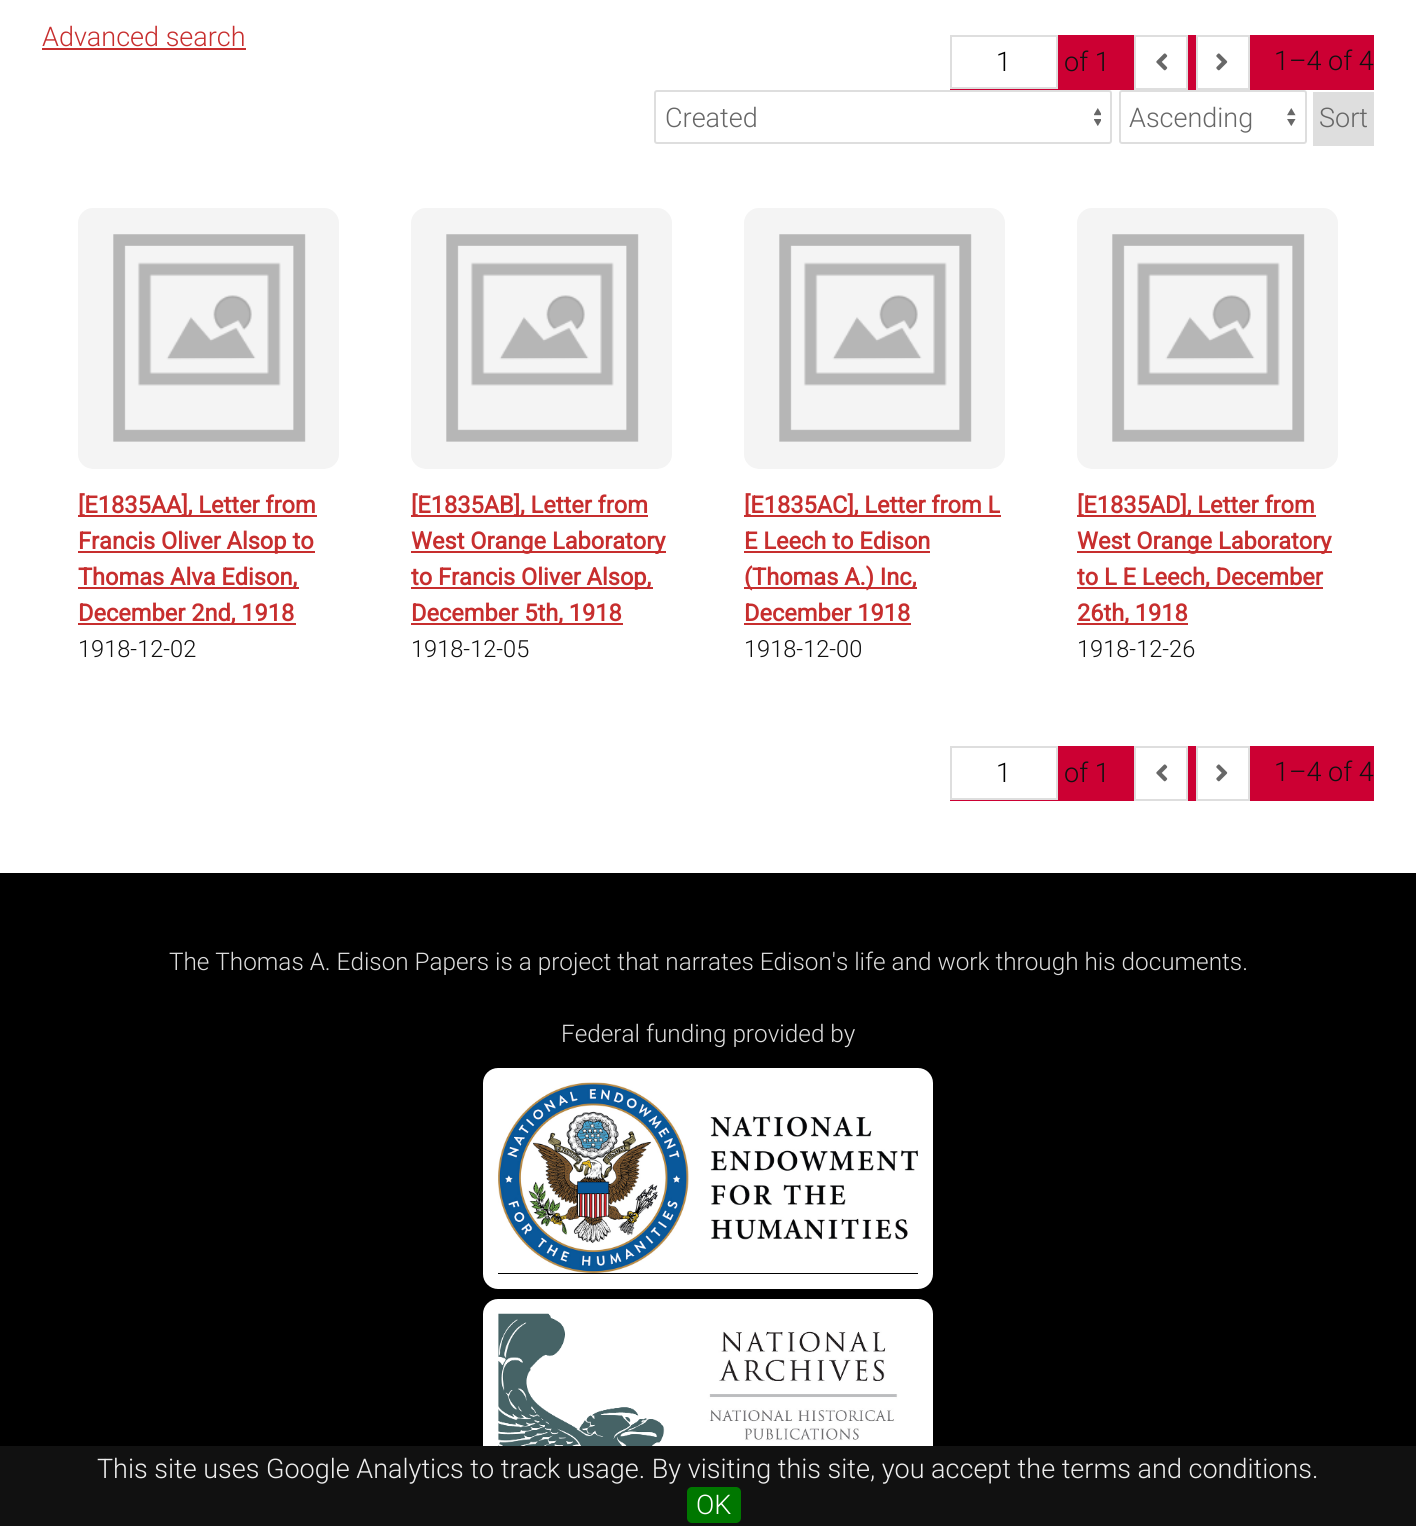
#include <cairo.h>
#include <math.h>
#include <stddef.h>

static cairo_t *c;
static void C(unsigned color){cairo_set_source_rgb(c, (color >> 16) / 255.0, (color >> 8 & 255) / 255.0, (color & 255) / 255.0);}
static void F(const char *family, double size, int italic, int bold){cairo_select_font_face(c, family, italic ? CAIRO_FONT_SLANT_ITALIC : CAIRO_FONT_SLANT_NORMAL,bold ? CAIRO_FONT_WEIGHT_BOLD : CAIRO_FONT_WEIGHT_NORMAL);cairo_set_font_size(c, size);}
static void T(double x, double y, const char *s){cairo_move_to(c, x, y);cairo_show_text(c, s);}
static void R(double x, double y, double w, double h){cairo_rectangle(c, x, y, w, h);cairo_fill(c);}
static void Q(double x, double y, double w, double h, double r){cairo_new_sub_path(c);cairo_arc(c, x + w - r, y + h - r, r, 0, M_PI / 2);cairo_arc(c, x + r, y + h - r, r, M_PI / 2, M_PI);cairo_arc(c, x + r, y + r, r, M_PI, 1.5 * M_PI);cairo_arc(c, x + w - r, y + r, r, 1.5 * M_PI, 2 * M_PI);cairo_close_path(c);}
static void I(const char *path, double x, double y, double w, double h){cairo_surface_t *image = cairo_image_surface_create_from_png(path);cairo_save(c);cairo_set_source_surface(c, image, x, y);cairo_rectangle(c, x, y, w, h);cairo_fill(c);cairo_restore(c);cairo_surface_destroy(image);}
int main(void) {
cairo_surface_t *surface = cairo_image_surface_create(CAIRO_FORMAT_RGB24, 1416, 1526);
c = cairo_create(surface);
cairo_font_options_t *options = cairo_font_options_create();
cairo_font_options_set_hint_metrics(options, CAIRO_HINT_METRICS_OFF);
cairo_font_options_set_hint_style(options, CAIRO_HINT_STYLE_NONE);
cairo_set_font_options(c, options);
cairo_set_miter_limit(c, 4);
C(0xffffff);
cairo_paint(c);
F("Roboto Light",27,0,0);
C(0xc72e2e);
T(42,46,"Advanced search");
R(42,48,204,2);
C(0xcc0033);
R(950,35,424,55);
C(0xffffff);
cairo_rectangle(c,951,36,106,52);
cairo_fill_preserve(c);
C(0xdedede);
cairo_stroke(c);
C(0x000000);
T(996,71,"1");
C(0x111111);
T(1064,71,"of 1");
C(0xffffff);
cairo_rectangle(c,1135,36,52,53);
cairo_fill_preserve(c);
C(0xdedede);
cairo_stroke(c);
I("1.png",1156,53,12,18);
C(0xffffff);
cairo_rectangle(c,1197,36,52,53);
cairo_fill_preserve(c);
C(0xdedede);
cairo_stroke(c);
I("2.png",1216,53,12,18);
C(0x111111);
T(1274,70,"1–4 of 4");
I("3.png",1094,108,7,18);
Q(655,91,456,52,2);
C(0xdedede);
cairo_stroke(c);
C(0x676767);
T(665,127,"Created");
I("4.png",1287,108,9,18);
Q(1120,91,186,52,2);
C(0xdedede);
cairo_stroke(c);
C(0x676767);
T(1129,127,"Ascending");
C(0xdedede);
R(1313,92,61,54);
C(0x676767);
T(1319,127,"Sort");
I("5.png",78,208,261,261);
C(0xc72e2e);
R(78,515,239,2);
F("Roboto",23.6,0,1);
T(78,513,"[E1835AA], Letter from");
R(78,551,237,2);
T(78,549,"Francis Oliver Alsop to");
R(78,587,221,2);
T(78,585,"Thomas Alva Edison,");
R(78,623,218,2);
T(78,621,"December 2nd, 1918");
F("Roboto Light",23.6,0,0);
C(0x111111);
T(78,657,"1918-12-02");
I("6.png",411,208,261,261);
C(0xc72e2e);
R(411,515,237,2);
F("Roboto",23.6,0,1);
T(411,513,"[E1835AB], Letter from");
R(411,551,255,2);
T(411,549,"West Orange Laboratory");
R(411,587,242,2);
T(411,585,"to Francis Oliver Alsop,");
R(411,623,212,2);
T(411,621,"December 5th, 1918");
F("Roboto Light",23.6,0,0);
C(0x111111);
T(411,657,"1918-12-05");
I("6.png",744,208,261,261);
C(0xc72e2e);
R(744,515,257,2);
F("Roboto",23.6,0,1);
T(744,513,"[E1835AC], Letter from L");
T(744,549,"E Leech to Edison");
R(744,551,186,2);
R(744,587,173,2);
T(744,585,"(Thomas A.) Inc,");
T(744,621,"December 1918");
R(744,623,167,2);
F("Roboto Light",23.6,0,0);
C(0x111111);
T(744,657,"1918-12-00");
I("6.png",1077,208,261,261);
C(0xc72e2e);
R(1077,515,239,2);
F("Roboto",23.6,0,1);
T(1077,513,"[E1835AD], Letter from");
R(1077,551,255,2);
T(1077,549,"West Orange Laboratory");
R(1077,587,246,2);
T(1077,585,"to L E Leech, December");
R(1077,623,111,2);
T(1077,621,"26th, 1918");
F("Roboto Light",23.6,0,0);
C(0x111111);
T(1077,657,"1918-12-26");
C(0xcc0033);
R(950,746,424,55);
C(0xffffff);
cairo_rectangle(c,951,747,106,52);
cairo_fill_preserve(c);
C(0xdedede);
cairo_stroke(c);
F("Roboto Light",27,0,0);
C(0x000000);
T(996,782,"1");
C(0x111111);
T(1064,782,"of 1");
C(0xffffff);
cairo_rectangle(c,1135,747,52,53);
cairo_fill_preserve(c);
C(0xdedede);
cairo_stroke(c);
I("1.png",1156,764,12,18);
C(0xffffff);
cairo_rectangle(c,1197,747,52,53);
cairo_fill_preserve(c);
C(0xdedede);
cairo_stroke(c);
I("2.png",1216,764,12,18);
C(0x111111);
T(1274,781,"1–4 of 4");
C(0x000000);
R(0,873,1416,573);
F("Roboto Light",24.3,0,0);
C(0xdddddd);
T(169,970,"The Thomas A. Edison Papers is a project that narrates Edison's life and work through his documents.");
T(561,1042,"Federal funding provided by");
Q(490.5,1075.5,435,206,7.5);
C(0xffffff);
cairo_set_line_width(c,15);
cairo_stroke(c);
I("7.png",498,1082,420,191);
Q(490.5,1306.5,435,168,7.5);
cairo_stroke(c);
I("8.png",498,1313,420,133);
C(0x111111);
R(0,1446,1416,80);
F("Roboto Light",27,0,0);
C(0xeeeeee);
T(97,1478,"This site uses Google Analytics to track usage. By visiting this site, you accept the terms and conditions.");
C(0x007700);
Q(687,1487,54,36,5);
cairo_fill(c);
C(0xffffff);
T(696,1514,"OK");
cairo_surface_write_to_png(surface, "o.png");
cairo_font_options_destroy(options);
cairo_destroy(c);
cairo_surface_destroy(surface);
return 0;
}
